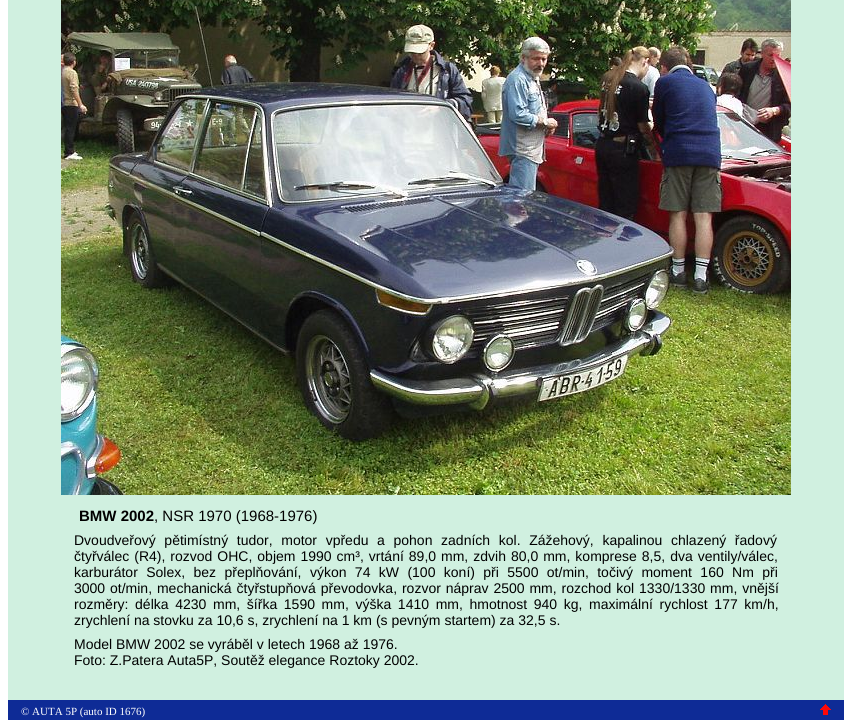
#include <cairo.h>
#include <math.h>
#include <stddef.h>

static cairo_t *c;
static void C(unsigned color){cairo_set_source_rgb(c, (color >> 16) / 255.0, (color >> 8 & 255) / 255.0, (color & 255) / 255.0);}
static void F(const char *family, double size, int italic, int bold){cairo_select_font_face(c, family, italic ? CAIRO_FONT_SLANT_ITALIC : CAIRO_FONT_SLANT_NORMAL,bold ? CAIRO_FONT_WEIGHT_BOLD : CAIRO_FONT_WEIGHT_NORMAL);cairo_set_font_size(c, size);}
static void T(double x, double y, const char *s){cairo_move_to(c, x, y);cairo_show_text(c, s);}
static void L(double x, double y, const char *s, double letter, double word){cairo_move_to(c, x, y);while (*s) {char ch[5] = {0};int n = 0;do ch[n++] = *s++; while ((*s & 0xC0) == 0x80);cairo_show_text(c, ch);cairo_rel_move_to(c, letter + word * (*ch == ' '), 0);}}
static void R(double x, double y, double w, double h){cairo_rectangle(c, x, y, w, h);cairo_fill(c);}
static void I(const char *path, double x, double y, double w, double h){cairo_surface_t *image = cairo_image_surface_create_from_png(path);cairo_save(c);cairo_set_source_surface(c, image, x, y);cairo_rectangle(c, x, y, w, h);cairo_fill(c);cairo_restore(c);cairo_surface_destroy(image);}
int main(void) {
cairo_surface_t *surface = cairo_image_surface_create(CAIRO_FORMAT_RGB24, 852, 728);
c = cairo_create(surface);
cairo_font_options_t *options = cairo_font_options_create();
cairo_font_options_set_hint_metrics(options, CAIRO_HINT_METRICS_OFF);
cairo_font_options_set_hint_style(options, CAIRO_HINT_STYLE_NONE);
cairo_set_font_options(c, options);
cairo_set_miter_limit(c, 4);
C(0xffffff);
cairo_paint(c);
C(0xd0f0e0);
R(8,0,836,700);
I("1.png",61,0,730,495);
F("Liberation Sans",15,0,1);
C(0x000000);
T(79,521,"BMW 2002");
F("Liberation Sans",15,0,0);
T(154,521,", NSR 1970 (1968-1976)");
F("Liberation Sans",14,0,0);
L(74,545,"Dvoudveřový pětimístný tudor, motor vpředu a pohon zadních kol. Zážehový, kapalinou chlazený řadový",0,4.75);
L(74,561,"čtyřválec (R4), rozvod OHC, objem 1990 cm³, vrtání 89,0 mm, zdvih 80,0 mm, komprese 8,5, dva ventily/válec,",0,1.1);
L(74,577,"karburátor Solex, bez přeplňování, výkon 74 kW (100 koní) při 5500 ot/min, točivý moment 160 Nm při",0,4.5);
L(74,593,"3000 ot/min, mechanická čtyřstupňová převodovka, rozvor náprav 2500 mm, rozchod kol 1330/1330 mm, vnější",0,1);
L(74,609,"rozměry: délka 4230 mm, šířka 1590 mm, výška 1410 mm, hmotnost 940 kg, maximální rychlost 177 km/h,",0,2.75);
T(74,625,"zrychlení na stovku za 10,6 s, zrychlení na 1 km (s pevným startem) za 32,5 s.");
T(74,649,"Model BMW 2002 se vyráběl v letech 1968 až 1976.");
T(74,665,"Foto: Z.Patera Auta5P, Soutěž elegance Roztoky 2002.");
C(0x0e2b96);
R(8,700,836,20);
F("Liberation Serif",11,0,0);
C(0xffffff);
T(21,715,"© AUTA 5P (auto ID 1676)");
I("2.png",820,704,11,11);
cairo_surface_write_to_png(surface, "o.png");
cairo_font_options_destroy(options);
cairo_destroy(c);
cairo_surface_destroy(surface);
return 0;
}
